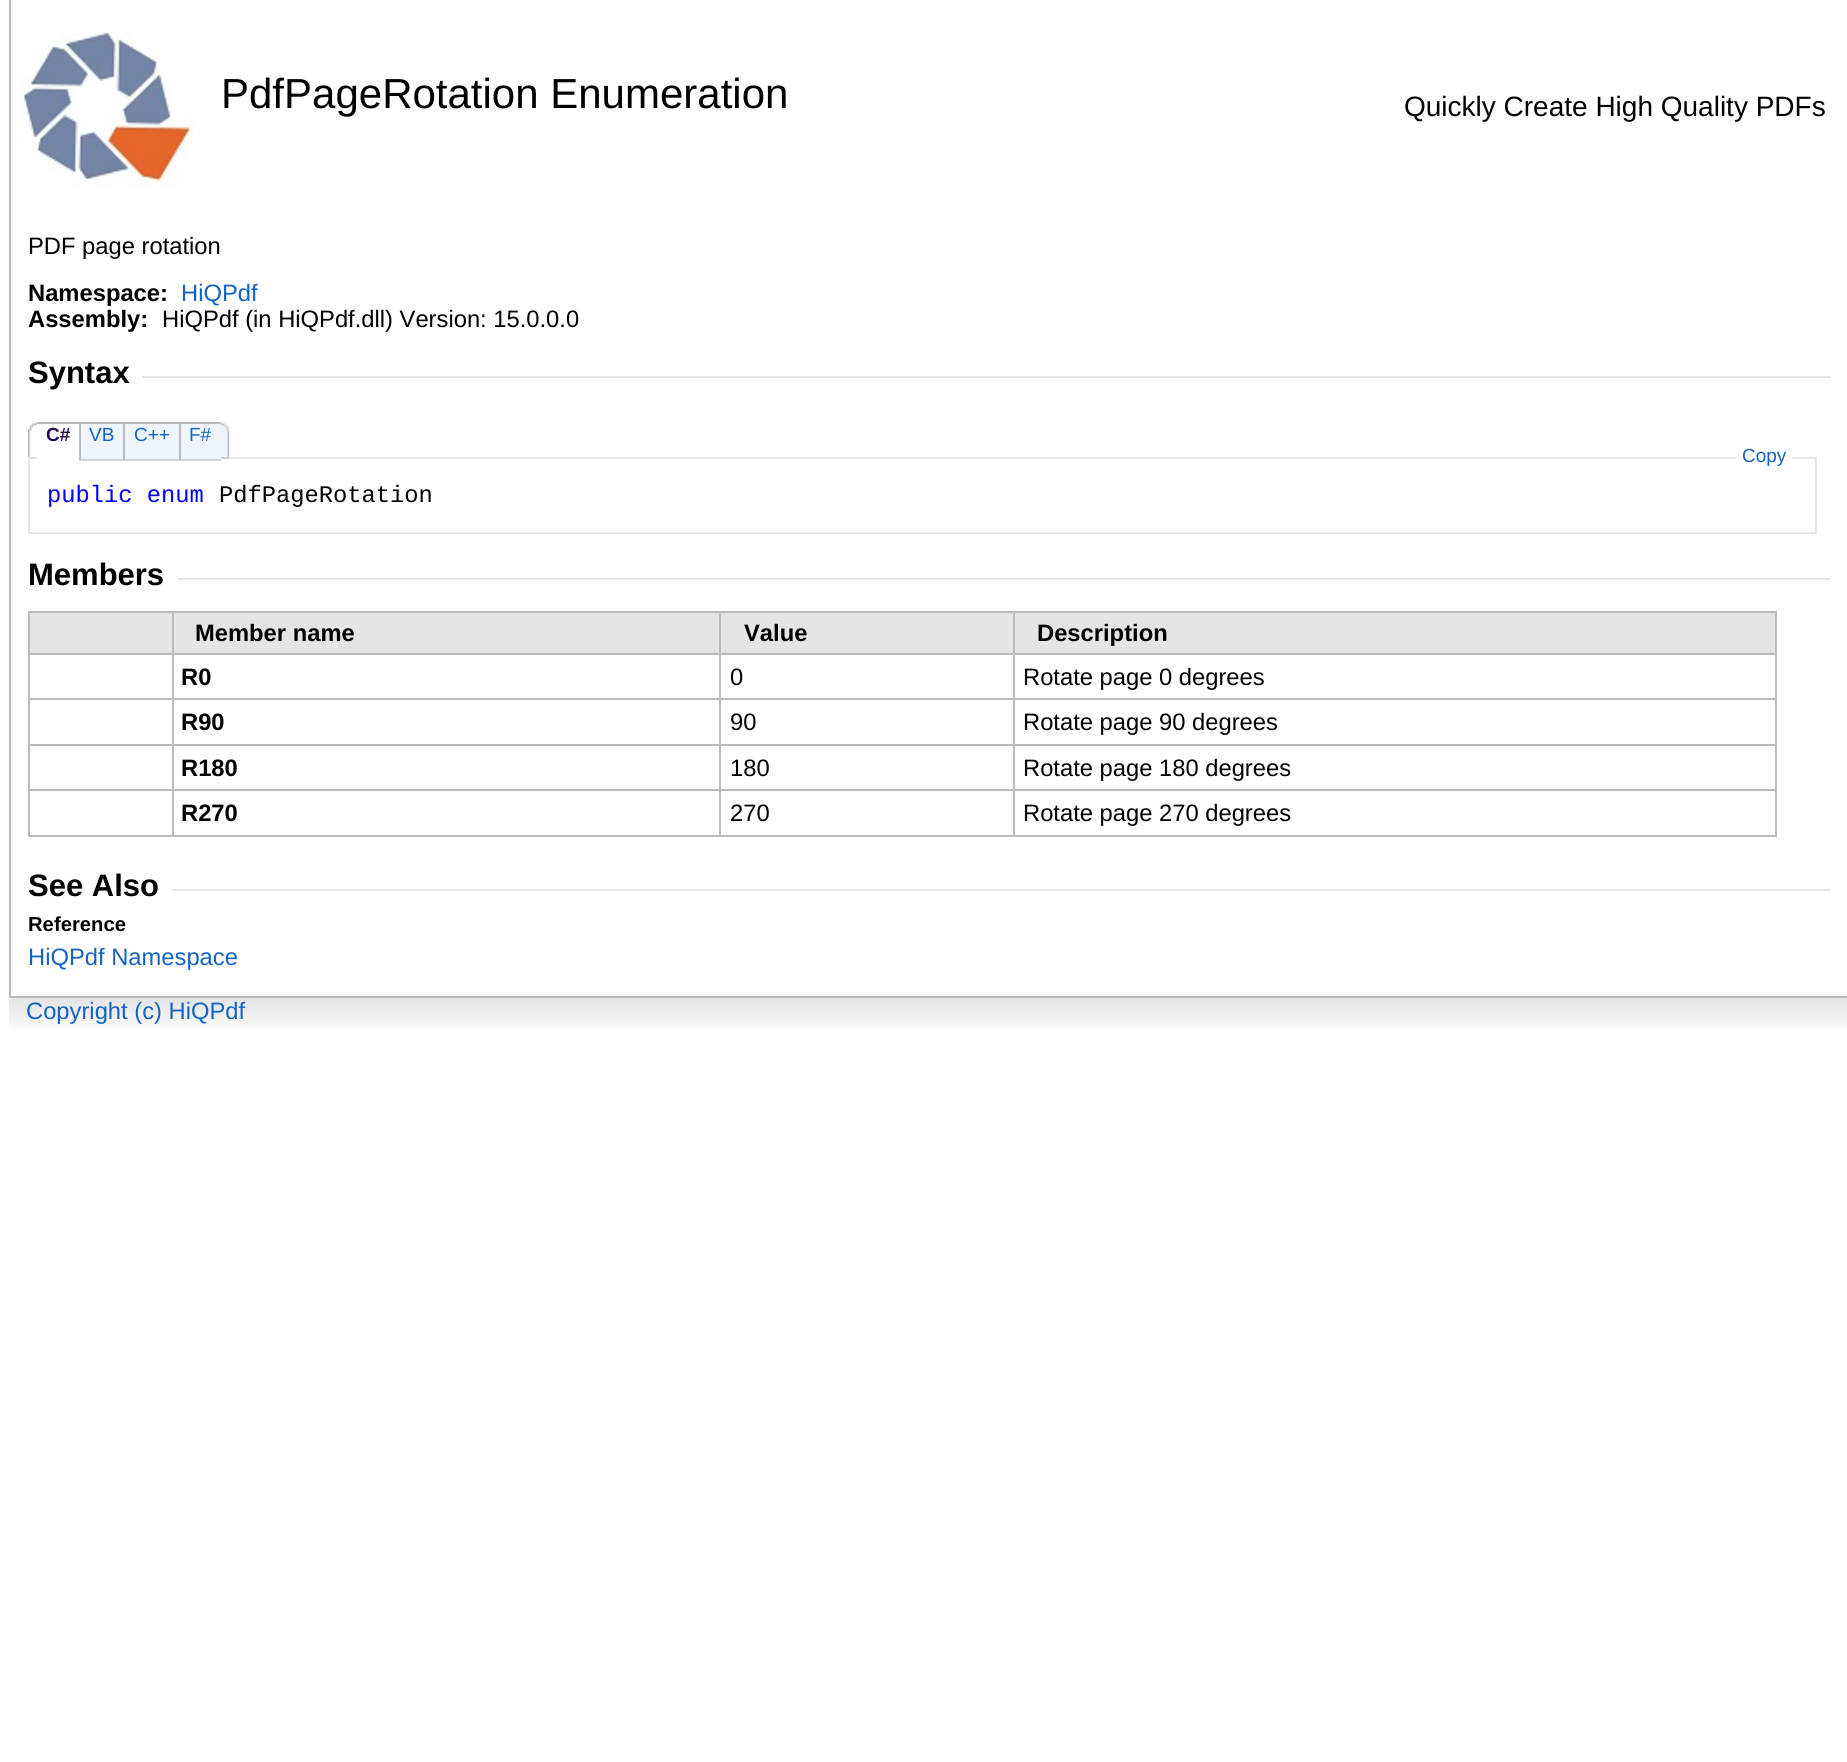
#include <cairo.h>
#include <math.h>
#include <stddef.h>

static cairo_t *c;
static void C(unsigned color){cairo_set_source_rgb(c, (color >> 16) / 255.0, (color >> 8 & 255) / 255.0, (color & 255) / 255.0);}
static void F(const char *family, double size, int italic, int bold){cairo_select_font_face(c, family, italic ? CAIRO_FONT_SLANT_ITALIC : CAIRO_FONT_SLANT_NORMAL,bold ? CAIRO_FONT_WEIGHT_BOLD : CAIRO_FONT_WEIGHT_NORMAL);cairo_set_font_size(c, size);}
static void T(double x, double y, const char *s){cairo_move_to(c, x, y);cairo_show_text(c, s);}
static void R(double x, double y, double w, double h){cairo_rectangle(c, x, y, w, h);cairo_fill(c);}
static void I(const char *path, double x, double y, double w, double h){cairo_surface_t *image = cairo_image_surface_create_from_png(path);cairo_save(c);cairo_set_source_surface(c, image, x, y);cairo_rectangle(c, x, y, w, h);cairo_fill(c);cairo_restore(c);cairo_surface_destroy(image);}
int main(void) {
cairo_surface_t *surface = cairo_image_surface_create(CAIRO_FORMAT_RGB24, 1847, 1762);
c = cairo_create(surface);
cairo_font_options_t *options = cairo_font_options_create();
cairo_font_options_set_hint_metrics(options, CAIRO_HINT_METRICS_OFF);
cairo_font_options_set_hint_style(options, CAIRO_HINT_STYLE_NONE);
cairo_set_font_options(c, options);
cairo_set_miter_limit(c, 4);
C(0xffffff);
cairo_paint(c);
C(0xbbbbbb);
R(9,0,2,996);
I("1.png",19,20,175,167);
F("Liberation Sans",42,0,0);
C(0x000000);
T(221,108,"PdfPageRotation Enumeration");
F("Liberation Sans",28,0,0);
T(1404,116,"Quickly Create High Quality PDFs");
F("Liberation Sans",23.75,0,0);
T(28,254,"PDF page rotation");
F("Liberation Sans",23.75,0,1);
T(28,301,"Namespace:");
F("Liberation Sans",23.75,0,0);
C(0x1364c4);
T(181,301,"HiQPdf");
F("Liberation Sans",23.75,0,1);
C(0x000000);
T(28,327,"Assembly:");
F("Liberation Sans",23.75,0,0);
T(162,327,"HiQPdf (in HiQPdf.dll) Version: 15.0.0.0");
F("Liberation Sans",31,0,1);
T(28,383,"Syntax");
C(0xe5e5e5);
R(142,376,1689,2);
I("2.png",28,421,9,36);
R(30,457,1785,2);
C(0xffffff);
R(37,457,42,2);
C(0xbbbbbb);
R(37,422,184,2);
F("Liberation Sans",19,0,1);
C(0x250c58);
T(46,441,"C#");
C(0xeff5ff);
R(81,424,42,35);
C(0xd0d2d2);
R(79,459,142,2);
C(0xbbbbbb);
R(79,422,2,38);
F("Liberation Sans",19,0,0);
C(0x1364c4);
T(89,441,"VB");
C(0xeff5ff);
R(125,424,54,35);
C(0xbbbbbb);
R(123,422,2,38);
C(0x1364c4);
T(134,441,"C++");
C(0xeff5ff);
R(181,424,40,35);
C(0xbbbbbb);
R(179,422,2,38);
C(0x1364c4);
T(189,441,"F#");
C(0xeff5ff);
R(221,422,8,37);
I("3.png",220,421,10,36);
C(0xd0d2d2);
R(221,457,8,2);
C(0xe5e5e5);
R(1815,457,2,77);
R(28,532,1789,2);
R(28,457,2,77);
C(0xffffff);
R(1736,457,56,2);
C(0x1364c4);
T(1742,462,"Copy");
F("Liberation Mono",23.75,0,0);
C(0x0000ff);
T(47,502,"public enum");
C(0x000000);
T(219,502,"PdfPageRotation");
F("Liberation Sans",31,0,1);
T(28,585,"Members");
C(0xe5e5e5);
R(177,578,1654,2);
C(0xbbbbbb);
R(28,611,1748,2);
R(1775,611,2,226);
R(28,835,1748,2);
R(28,611,2,226);
C(0xe5e5e5);
R(30,613,142,40);
R(174,613,545,40);
C(0xbbbbbb);
R(1013,653,763,2);
R(1013,698,763,2);
R(1013,744,763,2);
R(1013,789,763,2);
R(1013,789,2,48);
R(719,789,296,2);
R(1013,744,2,47);
R(719,744,296,2);
R(1013,698,2,48);
R(719,698,296,2);
R(1013,653,2,47);
R(719,653,296,2);
R(719,789,2,48);
R(172,789,549,2);
R(719,744,2,47);
R(172,744,549,2);
R(719,698,2,48);
R(172,698,549,2);
R(719,653,2,47);
R(172,653,549,2);
R(172,789,2,48);
R(28,789,145,2);
R(172,744,2,47);
R(28,744,145,2);
R(172,698,2,48);
R(28,698,145,2);
R(172,653,2,47);
R(28,653,145,2);
R(172,611,2,44);
F("Liberation Sans",23.75,0,1);
C(0x000000);
T(195,641,"Member name");
C(0xe5e5e5);
R(721,613,292,40);
C(0xbbbbbb);
R(719,611,2,44);
C(0x000000);
T(744,641,"Value");
C(0xe5e5e5);
R(1015,613,760,40);
C(0xbbbbbb);
R(1013,611,2,44);
C(0x000000);
T(1037,641,"Description");
T(181,685,"R0");
F("Liberation Sans",23.75,0,0);
T(730,685,"0");
T(1023,685,"Rotate page 0 degrees");
F("Liberation Sans",23.75,0,1);
T(181,730,"R90");
F("Liberation Sans",23.75,0,0);
T(730,730,"90");
T(1023,730,"Rotate page 90 degrees");
F("Liberation Sans",23.75,0,1);
T(181,776,"R180");
F("Liberation Sans",23.75,0,0);
T(730,776,"180");
T(1023,776,"Rotate page 180 degrees");
F("Liberation Sans",23.75,0,1);
T(181,821,"R270");
F("Liberation Sans",23.75,0,0);
T(730,821,"270");
T(1023,821,"Rotate page 270 degrees");
F("Liberation Sans",31,0,1);
T(28,896,"See Also");
C(0xe5e5e5);
R(172,889,1659,2);
F("Liberation Sans",20.25,0,1);
C(0x000000);
T(28,931,"Reference");
F("Liberation Sans",23.75,0,0);
C(0x1364c4);
T(28,965,"HiQPdf Namespace");
I("4.png",8,997,1839,31);
C(0xbbbbbb);
R(9,996,1838,2);
C(0x1364c4);
T(26,1019,"Copyright (c) HiQPdf");
cairo_surface_write_to_png(surface, "o.png");
cairo_font_options_destroy(options);
cairo_destroy(c);
cairo_surface_destroy(surface);
return 0;
}
